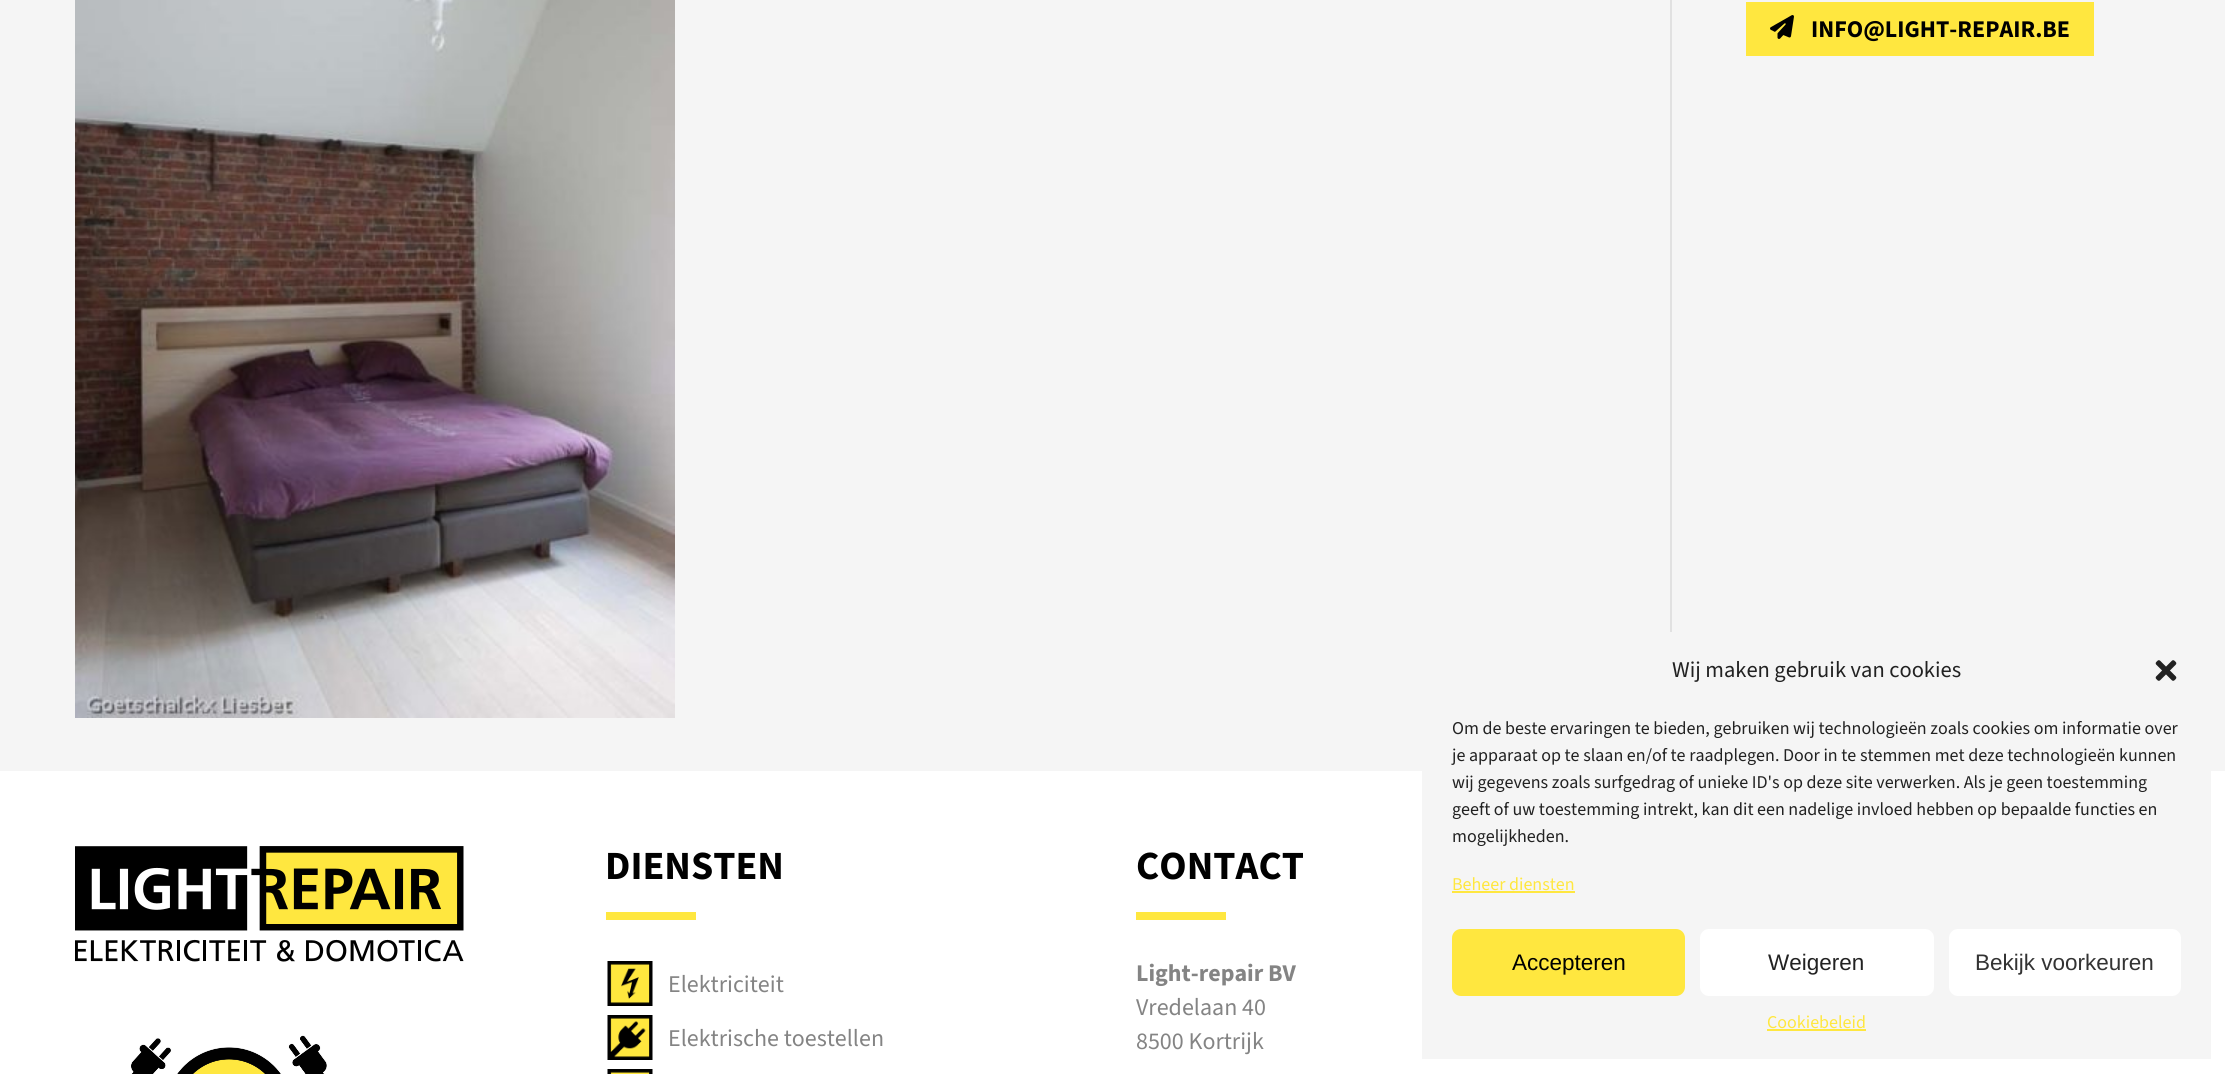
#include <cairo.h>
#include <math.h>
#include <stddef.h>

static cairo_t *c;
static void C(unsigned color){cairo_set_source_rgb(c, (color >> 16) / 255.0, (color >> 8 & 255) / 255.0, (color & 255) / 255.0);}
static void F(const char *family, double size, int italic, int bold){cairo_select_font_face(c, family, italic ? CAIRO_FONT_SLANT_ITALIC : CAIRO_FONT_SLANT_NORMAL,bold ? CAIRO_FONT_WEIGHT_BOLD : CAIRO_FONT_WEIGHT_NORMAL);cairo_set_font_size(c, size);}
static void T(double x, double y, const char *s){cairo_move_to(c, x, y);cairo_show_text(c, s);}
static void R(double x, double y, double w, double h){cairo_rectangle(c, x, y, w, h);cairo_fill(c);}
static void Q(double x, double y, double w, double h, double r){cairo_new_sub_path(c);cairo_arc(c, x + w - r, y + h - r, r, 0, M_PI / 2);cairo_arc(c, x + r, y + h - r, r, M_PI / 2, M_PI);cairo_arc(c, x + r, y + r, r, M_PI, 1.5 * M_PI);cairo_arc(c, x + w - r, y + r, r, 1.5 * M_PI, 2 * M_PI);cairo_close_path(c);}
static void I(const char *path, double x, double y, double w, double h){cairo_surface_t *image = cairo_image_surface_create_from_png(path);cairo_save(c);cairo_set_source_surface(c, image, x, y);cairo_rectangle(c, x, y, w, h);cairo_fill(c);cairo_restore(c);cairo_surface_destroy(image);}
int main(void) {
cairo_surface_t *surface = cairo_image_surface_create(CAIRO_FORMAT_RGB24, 2225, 1074);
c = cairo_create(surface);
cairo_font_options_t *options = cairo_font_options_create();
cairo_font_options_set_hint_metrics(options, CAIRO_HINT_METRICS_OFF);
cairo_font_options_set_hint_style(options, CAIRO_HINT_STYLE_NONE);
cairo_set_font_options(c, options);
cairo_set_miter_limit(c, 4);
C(0xf5f5f5);
cairo_paint(c);
I("1.png",75,0,600,718);
C(0xe1e1e1);
R(1670,0,2,632);
C(0xffe73f);
R(1746,2,348,54);
I("2.png",1770,15,24,24);
F("Source Sans 3 ExtraLight",24,0,0);
C(0x000000);
T(1811,37,"INFO@LIGHT-REPAIR.BE");
C(0xffffff);
R(0,771,2225,303);
I("3.png",75,846,389,116);
I("4.png",131,1035,196,39);
F("Source Sans 3 ExtraLight",40,0,0);
C(0x000000);
T(605,879,"DIENSTEN");
C(0xffe73f);
R(606,912,90,8);
I("5.png",607,961,46,45);
F("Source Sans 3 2 ExtraLight",24,0,0);
C(0x848484);
T(668,992,"Elektriciteit");
I("6.png",607,1015,46,45);
T(668,1046,"Elektrische toestellen");
I("7.png",607,1069,46,5);
F("Source Sans 3 ExtraLight",40,0,0);
C(0x000000);
T(1136,879,"CONTACT");
C(0xffe73f);
R(1136,912,90,8);
F("Source Sans 3 ExtraLight",24,0,0);
C(0x848484);
T(1136,981,"Light-repair BV");
F("Source Sans 3 2 ExtraLight",24,0,0);
T(1136,1015,"Vredelaan 40");
T(1136,1049,"8500 Kortrijk");
C(0xf5f5f5);
R(1422,771,789,288);
F("Source Sans 3 2 ExtraLight",22.5,0,0);
C(0x222222);
T(1672,677,"Wij maken gebruik van cookies");
I("8.png",2155,660,22,21);
F("Source Sans 3 2 ExtraLight",18,0,0);
T(1452,734,"Om de beste ervaringen te bieden, gebruiken wij technologieën zoals cookies om informatie over");
T(1452,761,"je apparaat op te slaan en/of te raadplegen. Door in te stemmen met deze technologieën kunnen");
T(1452,788,"wij gegevens zoals surfgedrag of unieke ID's op deze site verwerken. Als je geen toestemming");
T(1452,815,"geeft of uw toestemming intrekt, kan dit een nadelige invloed hebben op bepaalde functies en");
T(1452,842,"mogelijkheden.");
C(0xffe73f);
T(1452,890,"Beheer diensten");
R(1452,891,123,2);
Q(1453,930,231,65,8);
cairo_fill_preserve(c);
cairo_stroke(c);
F("Liberation Sans",22.5,0,0);
C(0x000000);
T(1512,970,"Accepteren");
C(0xffffff);
Q(1700,929,234,67,9);
cairo_fill(c);
C(0x222222);
T(1768,970,"Weigeren");
C(0xffffff);
Q(1949,929,232,67,9);
cairo_fill(c);
C(0x333333);
T(1975,970,"Bekijk voorkeuren");
F("Source Sans 3 2 ExtraLight",18,0,0);
C(0xffe73f);
T(1767,1028,"Cookiebeleid");
R(1767,1029,99,2);
cairo_surface_write_to_png(surface, "o.png");
cairo_font_options_destroy(options);
cairo_destroy(c);
cairo_surface_destroy(surface);
return 0;
}
